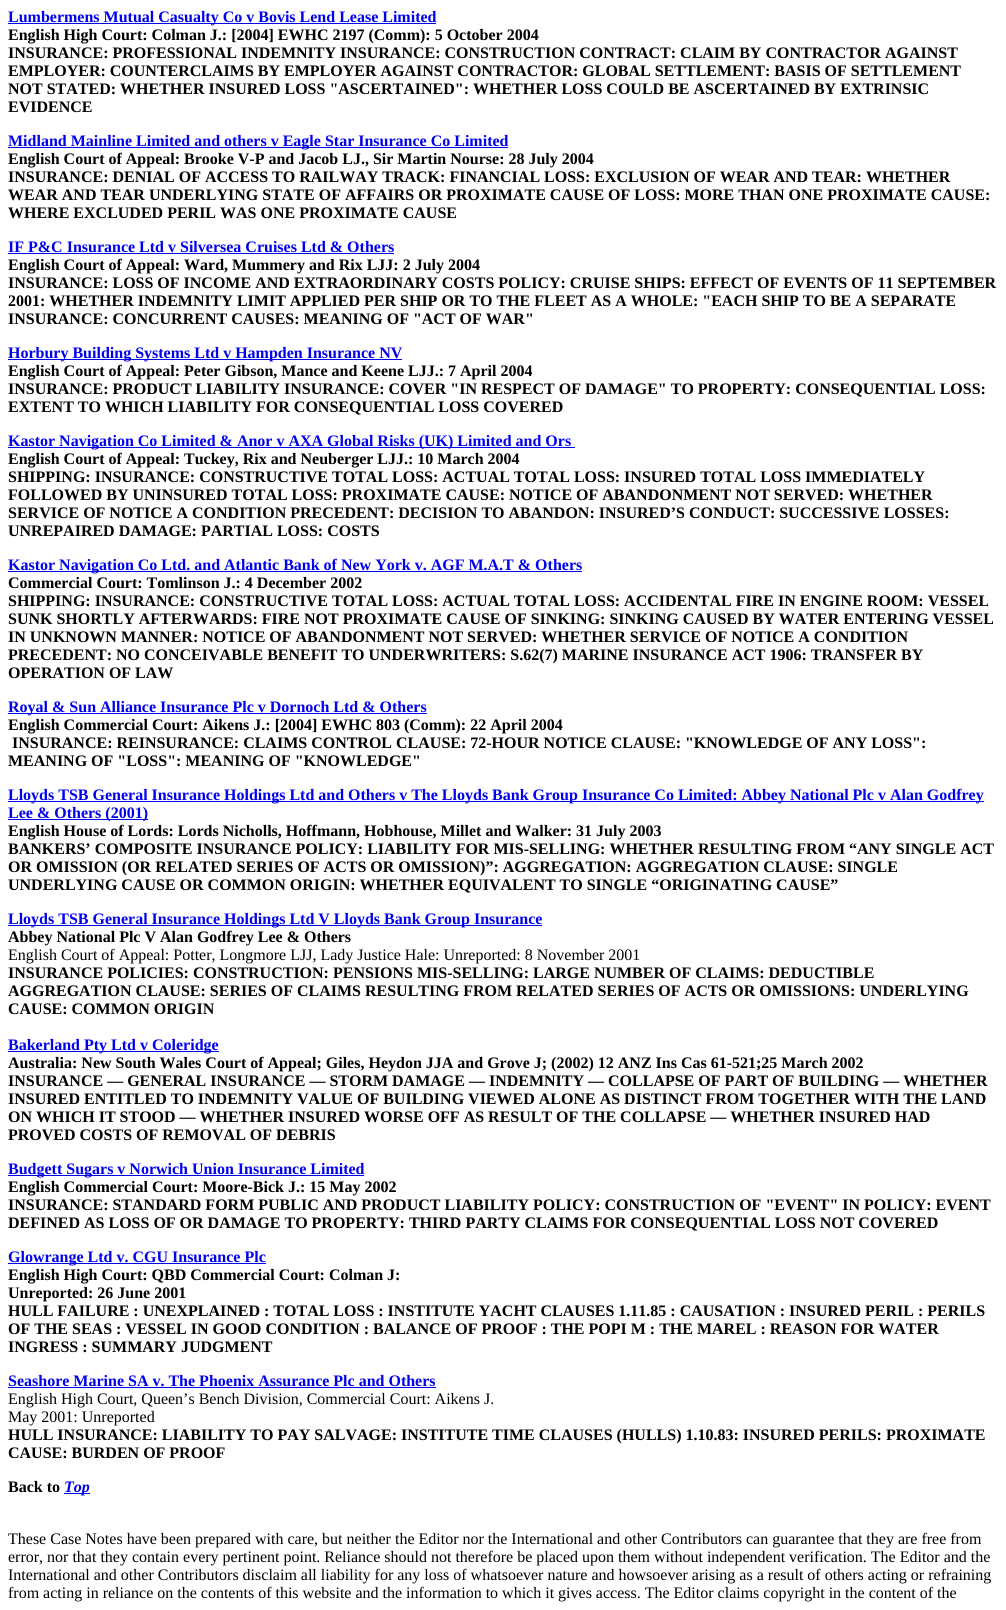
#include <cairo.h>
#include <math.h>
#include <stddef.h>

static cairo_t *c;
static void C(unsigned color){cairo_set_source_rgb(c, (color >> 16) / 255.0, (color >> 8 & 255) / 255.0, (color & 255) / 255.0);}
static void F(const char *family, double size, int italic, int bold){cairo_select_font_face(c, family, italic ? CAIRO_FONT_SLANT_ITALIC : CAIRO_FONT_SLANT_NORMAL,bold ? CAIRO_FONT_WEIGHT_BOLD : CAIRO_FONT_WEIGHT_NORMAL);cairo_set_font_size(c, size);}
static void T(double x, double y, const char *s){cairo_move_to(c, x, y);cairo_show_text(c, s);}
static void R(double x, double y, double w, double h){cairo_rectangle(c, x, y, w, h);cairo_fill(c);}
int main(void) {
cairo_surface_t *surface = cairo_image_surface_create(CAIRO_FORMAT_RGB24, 1006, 1610);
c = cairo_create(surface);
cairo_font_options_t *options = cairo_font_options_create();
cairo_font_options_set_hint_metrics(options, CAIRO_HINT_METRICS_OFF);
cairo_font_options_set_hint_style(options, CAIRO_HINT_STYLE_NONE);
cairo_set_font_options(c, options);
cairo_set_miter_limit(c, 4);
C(0xffffff);
cairo_paint(c);
C(0x0000ee);
R(8,23,428,1);
F("Liberation Serif",16,0,1);
T(8,22,"Lumbermens Mutual Casualty Co v Bovis Lend Lease Limited");
C(0x000000);
T(8,40,"English High Court: Colman J.: [2004] EWHC 2197 (Comm): 5 October 2004");
T(8,58,"INSURANCE: PROFESSIONAL INDEMNITY INSURANCE: CONSTRUCTION CONTRACT: CLAIM BY CONTRACTOR AGAINST");
T(8,76,"EMPLOYER: COUNTERCLAIMS BY EMPLOYER AGAINST CONTRACTOR: GLOBAL SETTLEMENT: BASIS OF SETTLEMENT");
T(8,94,"NOT STATED: WHETHER INSURED LOSS \"ASCERTAINED\": WHETHER LOSS COULD BE ASCERTAINED BY EXTRINSIC");
T(8,112,"EVIDENCE");
C(0x0000ee);
R(8,147,500,1);
T(8,146,"Midland Mainline Limited and others v Eagle Star Insurance Co Limited");
C(0x000000);
T(8,164,"English Court of Appeal: Brooke V-P and Jacob LJ., Sir Martin Nourse: 28 July 2004");
T(8,182,"INSURANCE: DENIAL OF ACCESS TO RAILWAY TRACK: FINANCIAL LOSS: EXCLUSION OF WEAR AND TEAR: WHETHER");
T(8,200,"WEAR AND TEAR UNDERLYING STATE OF AFFAIRS OR PROXIMATE CAUSE OF LOSS: MORE THAN ONE PROXIMATE CAUSE:");
T(8,218,"WHERE EXCLUDED PERIL WAS ONE PROXIMATE CAUSE");
C(0x0000ee);
T(8,252,"IF P&C Insurance Ltd v Silversea Cruises Ltd & Others");
R(8,253,386,1);
C(0x000000);
T(8,270,"English Court of Appeal: Ward, Mummery and Rix LJJ: 2 July 2004");
T(8,288,"INSURANCE: LOSS OF INCOME AND EXTRAORDINARY COSTS POLICY: CRUISE SHIPS: EFFECT OF EVENTS OF 11 SEPTEMBER");
T(8,306,"2001: WHETHER INDEMNITY LIMIT APPLIED PER SHIP OR TO THE FLEET AS A WHOLE: \"EACH SHIP TO BE A SEPARATE");
T(8,324,"INSURANCE: CONCURRENT CAUSES: MEANING OF \"ACT OF WAR\"");
C(0x0000ee);
R(8,359,394,1);
T(8,358,"Horbury Building Systems Ltd v Hampden Insurance NV");
C(0x000000);
T(8,376,"English Court of Appeal: Peter Gibson, Mance and Keene LJJ.: 7 April 2004");
T(8,394,"INSURANCE: PRODUCT LIABILITY INSURANCE: COVER \"IN RESPECT OF DAMAGE\" TO PROPERTY: CONSEQUENTIAL LOSS:");
T(8,412,"EXTENT TO WHICH LIABILITY FOR CONSEQUENTIAL LOSS COVERED");
C(0x0000ee);
R(8,447,567,1);
T(8,446,"Kastor Navigation Co Limited & Anor v AXA Global Risks (UK) Limited and Ors");
C(0x000000);
T(8,464,"English Court of Appeal: Tuckey, Rix and Neuberger LJJ.: 10 March 2004");
T(8,482,"SHIPPING: INSURANCE: CONSTRUCTIVE TOTAL LOSS: ACTUAL TOTAL LOSS: INSURED TOTAL LOSS IMMEDIATELY");
T(8,500,"FOLLOWED BY UNINSURED TOTAL LOSS: PROXIMATE CAUSE: NOTICE OF ABANDONMENT NOT SERVED: WHETHER");
T(8,518,"SERVICE OF NOTICE A CONDITION PRECEDENT: DECISION TO ABANDON: INSURED’S CONDUCT: SUCCESSIVE LOSSES:");
T(8,536,"UNREPAIRED DAMAGE: PARTIAL LOSS: COSTS");
C(0x0000ee);
R(8,571,574,1);
T(8,570,"Kastor Navigation Co Ltd. and Atlantic Bank of New York v. AGF M.A.T & Others");
C(0x000000);
T(8,588,"Commercial Court: Tomlinson J.: 4 December 2002");
T(8,606,"SHIPPING: INSURANCE: CONSTRUCTIVE TOTAL LOSS: ACTUAL TOTAL LOSS: ACCIDENTAL FIRE IN ENGINE ROOM: VESSEL");
T(8,624,"SUNK SHORTLY AFTERWARDS: FIRE NOT PROXIMATE CAUSE OF SINKING: SINKING CAUSED BY WATER ENTERING VESSEL");
T(8,642,"IN UNKNOWN MANNER: NOTICE OF ABANDONMENT NOT SERVED: WHETHER SERVICE OF NOTICE A CONDITION");
T(8,660,"PRECEDENT: NO CONCEIVABLE BENEFIT TO UNDERWRITERS: S.62(7) MARINE INSURANCE ACT 1906: TRANSFER BY");
T(8,678,"OPERATION OF LAW");
C(0x0000ee);
R(8,713,419,1);
T(8,712,"Royal & Sun Alliance Insurance Plc v Dornoch Ltd & Others");
C(0x000000);
T(8,730,"English Commercial Court: Aikens J.: [2004] EWHC 803 (Comm): 22 April 2004");
T(12,748,"INSURANCE: REINSURANCE: CLAIMS CONTROL CLAUSE: 72-HOUR NOTICE CLAUSE: \"KNOWLEDGE OF ANY LOSS\":");
T(8,766,"MEANING OF \"LOSS\": MEANING OF \"KNOWLEDGE\"");
C(0x0000ee);
R(8,801,976,1);
T(8,800,"Lloyds TSB General Insurance Holdings Ltd and Others v The Lloyds Bank Group Insurance Co Limited: Abbey National Plc v Alan Godfrey");
R(8,819,140,1);
T(8,818,"Lee & Others (2001)");
C(0x000000);
T(8,836,"English House of Lords: Lords Nicholls, Hoffmann, Hobhouse, Millet and Walker: 31 July 2003");
T(8,854,"BANKERS’ COMPOSITE INSURANCE POLICY: LIABILITY FOR MIS-SELLING: WHETHER RESULTING FROM “ANY SINGLE ACT");
T(8,872,"OR OMISSION (OR RELATED SERIES OF ACTS OR OMISSION)”: AGGREGATION: AGGREGATION CLAUSE: SINGLE");
T(8,890,"UNDERLYING CAUSE OR COMMON ORIGIN: WHETHER EQUIVALENT TO SINGLE “ORIGINATING CAUSE”");
C(0x0000ee);
R(8,925,534,1);
T(8,924,"Lloyds TSB General Insurance Holdings Ltd V Lloyds Bank Group Insurance");
C(0x000000);
T(8,942,"Abbey National Plc V Alan Godfrey Lee & Others");
F("Liberation Serif",16,0,0);
T(8,960,"English Court of Appeal: Potter, Longmore LJJ, Lady Justice Hale: Unreported: 8 November 2001");
F("Liberation Serif",16,0,1);
T(8,978,"INSURANCE POLICIES: CONSTRUCTION: PENSIONS MIS-SELLING: LARGE NUMBER OF CLAIMS: DEDUCTIBLE");
T(8,996,"AGGREGATION CLAUSE: SERIES OF CLAIMS RESULTING FROM RELATED SERIES OF ACTS OR OMISSIONS: UNDERLYING");
T(8,1014,"CAUSE: COMMON ORIGIN");
C(0x0000ee);
R(8,1051,211,1);
T(8,1050,"Bakerland Pty Ltd v Coleridge");
C(0x000000);
T(8,1068,"Australia: New South Wales Court of Appeal; Giles, Heydon JJA and Grove J; (2002) 12 ANZ Ins Cas 61-521;25 March 2002");
T(8,1086,"INSURANCE — GENERAL INSURANCE — STORM DAMAGE — INDEMNITY — COLLAPSE OF PART OF BUILDING — WHETHER");
T(8,1104,"INSURED ENTITLED TO INDEMNITY VALUE OF BUILDING VIEWED ALONE AS DISTINCT FROM TOGETHER WITH THE LAND");
T(8,1122,"ON WHICH IT STOOD — WHETHER INSURED WORSE OFF AS RESULT OF THE COLLAPSE — WHETHER INSURED HAD");
T(8,1140,"PROVED COSTS OF REMOVAL OF DEBRIS");
C(0x0000ee);
R(8,1175,356,1);
T(8,1174,"Budgett Sugars v Norwich Union Insurance Limited");
C(0x000000);
T(8,1192,"English Commercial Court: Moore-Bick J.: 15 May 2002");
T(8,1210,"INSURANCE: STANDARD FORM PUBLIC AND PRODUCT LIABILITY POLICY: CONSTRUCTION OF \"EVENT\" IN POLICY: EVENT");
T(8,1228,"DEFINED AS LOSS OF OR DAMAGE TO PROPERTY: THIRD PARTY CLAIMS FOR CONSEQUENTIAL LOSS NOT COVERED");
C(0x0000ee);
R(8,1263,258,1);
T(8,1262,"Glowrange Ltd v. CGU Insurance Plc");
C(0x000000);
T(8,1280,"English High Court: QBD Commercial Court: Colman J:");
T(8,1298,"Unreported: 26 June 2001");
T(8,1316,"HULL FAILURE : UNEXPLAINED : TOTAL LOSS : INSTITUTE YACHT CLAUSES 1.11.85 : CAUSATION : INSURED PERIL : PERILS");
T(8,1334,"OF THE SEAS : VESSEL IN GOOD CONDITION : BALANCE OF PROOF : THE POPI M : THE MAREL : REASON FOR WATER");
T(8,1352,"INGRESS : SUMMARY JUDGMENT");
C(0x0000ee);
T(8,1386,"Seashore Marine SA v. The Phoenix Assurance Plc and Others");
R(8,1387,428,1);
F("Liberation Serif",16,0,0);
C(0x000000);
T(8,1404,"English High Court, Queen’s Bench Division, Commercial Court: Aikens J.");
T(8,1422,"May 2001: Unreported");
F("Liberation Serif",16,0,1);
T(8,1440,"HULL INSURANCE: LIABILITY TO PAY SALVAGE: INSTITUTE TIME CLAUSES (HULLS) 1.10.83: INSURED PERILS: PROXIMATE");
T(8,1458,"CAUSE: BURDEN OF PROOF");
T(8,1492,"Back to");
C(0x0000ee);
R(64,1493,26,1);
F("Liberation Serif",16,1,1);
T(64,1492,"Top");
F("Liberation Serif",16,0,0);
C(0x000000);
T(8,1544,"These Case Notes have been prepared with care, but neither the Editor nor the International and other Contributors can guarantee that they are free from");
T(8,1562,"error, nor that they contain every pertinent point. Reliance should not therefore be placed upon them without independent verification. The Editor and the");
T(8,1580,"International and other Contributors disclaim all liability for any loss of whatsoever nature and howsoever arising as a result of others acting or refraining");
T(8,1598,"from acting in reliance on the contents of this website and the information to which it gives access. The Editor claims copyright in the content of the");
cairo_surface_write_to_png(surface, "o.png");
cairo_font_options_destroy(options);
cairo_destroy(c);
cairo_surface_destroy(surface);
return 0;
}
